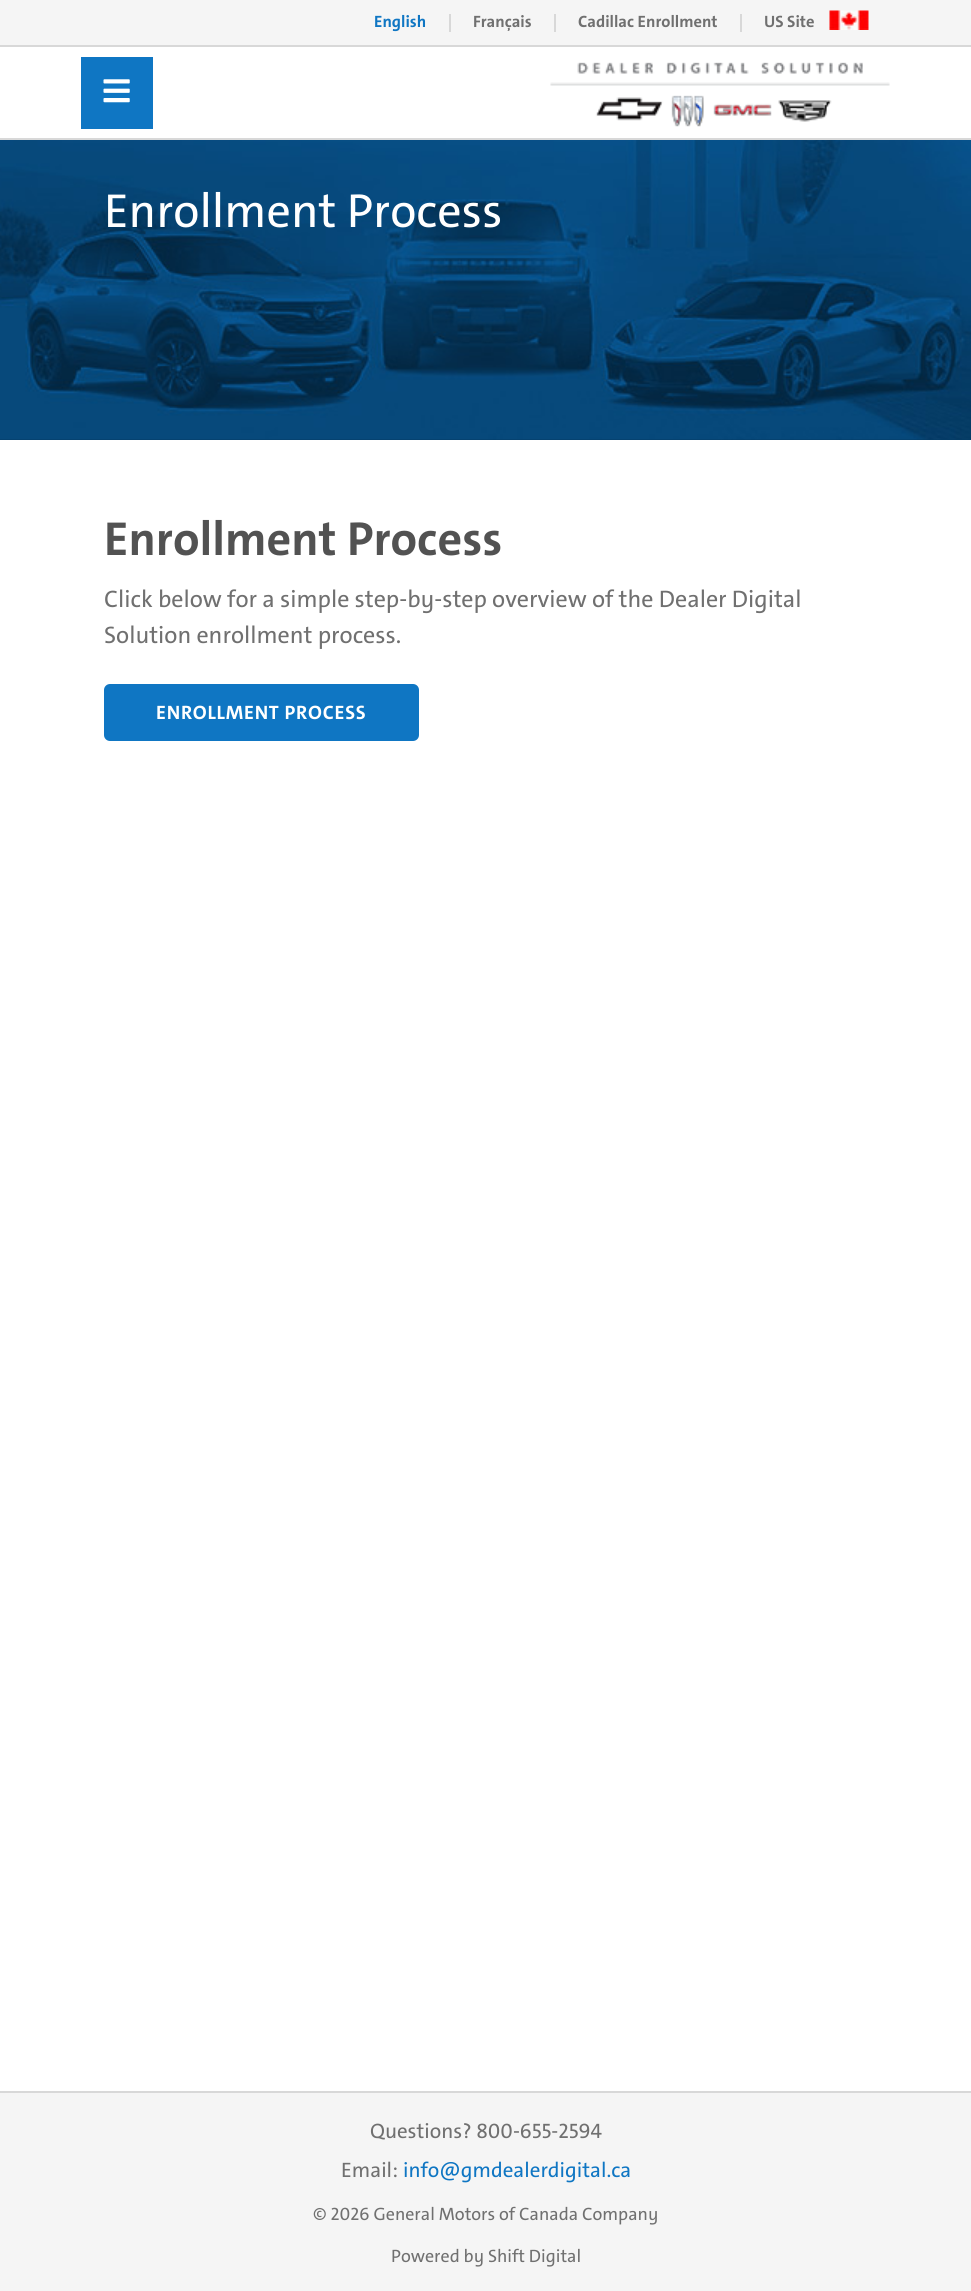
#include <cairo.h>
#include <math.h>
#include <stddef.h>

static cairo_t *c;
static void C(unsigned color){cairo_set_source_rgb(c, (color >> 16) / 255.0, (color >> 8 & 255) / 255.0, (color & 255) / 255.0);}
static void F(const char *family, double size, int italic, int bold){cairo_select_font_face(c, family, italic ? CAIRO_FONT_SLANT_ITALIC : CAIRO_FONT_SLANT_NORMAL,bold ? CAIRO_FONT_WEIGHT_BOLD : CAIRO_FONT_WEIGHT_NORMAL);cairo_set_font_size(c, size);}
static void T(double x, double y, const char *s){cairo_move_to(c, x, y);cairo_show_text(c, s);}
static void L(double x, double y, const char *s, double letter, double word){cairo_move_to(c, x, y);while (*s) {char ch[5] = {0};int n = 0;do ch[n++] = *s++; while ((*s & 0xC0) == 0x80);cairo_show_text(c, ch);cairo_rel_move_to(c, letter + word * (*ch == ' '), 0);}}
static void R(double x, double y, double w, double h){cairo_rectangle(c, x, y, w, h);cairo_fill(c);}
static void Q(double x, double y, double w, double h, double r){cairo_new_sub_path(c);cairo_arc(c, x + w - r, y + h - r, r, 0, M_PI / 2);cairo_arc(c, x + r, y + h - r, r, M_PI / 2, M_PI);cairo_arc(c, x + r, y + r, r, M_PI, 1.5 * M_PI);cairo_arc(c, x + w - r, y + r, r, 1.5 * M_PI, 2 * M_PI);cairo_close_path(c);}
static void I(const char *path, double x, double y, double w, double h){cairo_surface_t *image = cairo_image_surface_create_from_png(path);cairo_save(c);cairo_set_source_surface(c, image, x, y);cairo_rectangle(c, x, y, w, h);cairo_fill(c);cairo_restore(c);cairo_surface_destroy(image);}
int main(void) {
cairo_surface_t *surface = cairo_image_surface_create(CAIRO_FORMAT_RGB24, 971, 2291);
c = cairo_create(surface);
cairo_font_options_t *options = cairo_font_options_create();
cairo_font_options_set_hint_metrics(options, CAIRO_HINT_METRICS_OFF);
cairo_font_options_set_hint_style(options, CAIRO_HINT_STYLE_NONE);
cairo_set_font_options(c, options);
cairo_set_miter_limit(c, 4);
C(0xffffff);
cairo_paint(c);
C(0xf5f5f5);
R(0,0,971,45);
C(0xd8d8d8);
R(0,45,971,2);
F("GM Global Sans",16.5,0,1);
C(0x0f76c3);
T(374,27,"English");
C(0xd8d8d8);
R(449,14,2,18);
C(0x707070);
T(473,27,"Français");
C(0xd8d8d8);
R(554,14,2,18);
C(0x707070);
T(578,27,"Cadillac Enrollment");
C(0xd8d8d8);
R(740,14,2,18);
C(0x707070);
T(764,27,"US Site");
I("1.png",829,10,40,20);
C(0xd8d8d8);
R(0,138,971,2);
C(0x0f76c3);
R(81,57,72,72);
I("2.png",103,79,27,24);
I("3.png",550,62,340,65);
C(0x053c66);
R(0,439,971,1);
I("4.png",0,140,971,300);
F("GM Global Sans",48,0,0);
C(0xffffff);
T(104,227,"Enrollment Process");
F("GM Global Sans",48,0,1);
C(0x525252);
T(104,555,"Enrollment Process");
F("GM Global Sans",24,0,0);
C(0x707070);
T(104,607,"Click below for a simple step-by-step overview of the Dealer Digital");
T(104,643,"Solution enrollment process.");
C(0x0f76c3);
Q(104,684,315,57,6);
cairo_fill(c);
F("GM Global Sans",19.5,0,1);
C(0xffffff);
L(156,719,"ENROLLMENT PROCESS",.75,0);
C(0xf5f5f5);
R(0,2093,971,198);
C(0xd8d8d8);
R(0,2091,971,2);
F("GM Global Sans",21,0,0);
C(0x707070);
T(370,2138,"Questions? 800-655-2594");
T(341,2177,"Email:");
C(0x0f76c3);
T(403,2177,"info@gmdealerdigital.ca");
F("GM Global Sans",18,0,0);
C(0x707070);
T(313,2220,"© 2026 General Motors of Canada Company");
T(391,2262,"Powered by Shift Digital");
cairo_surface_write_to_png(surface, "o.png");
cairo_font_options_destroy(options);
cairo_destroy(c);
cairo_surface_destroy(surface);
return 0;
}
